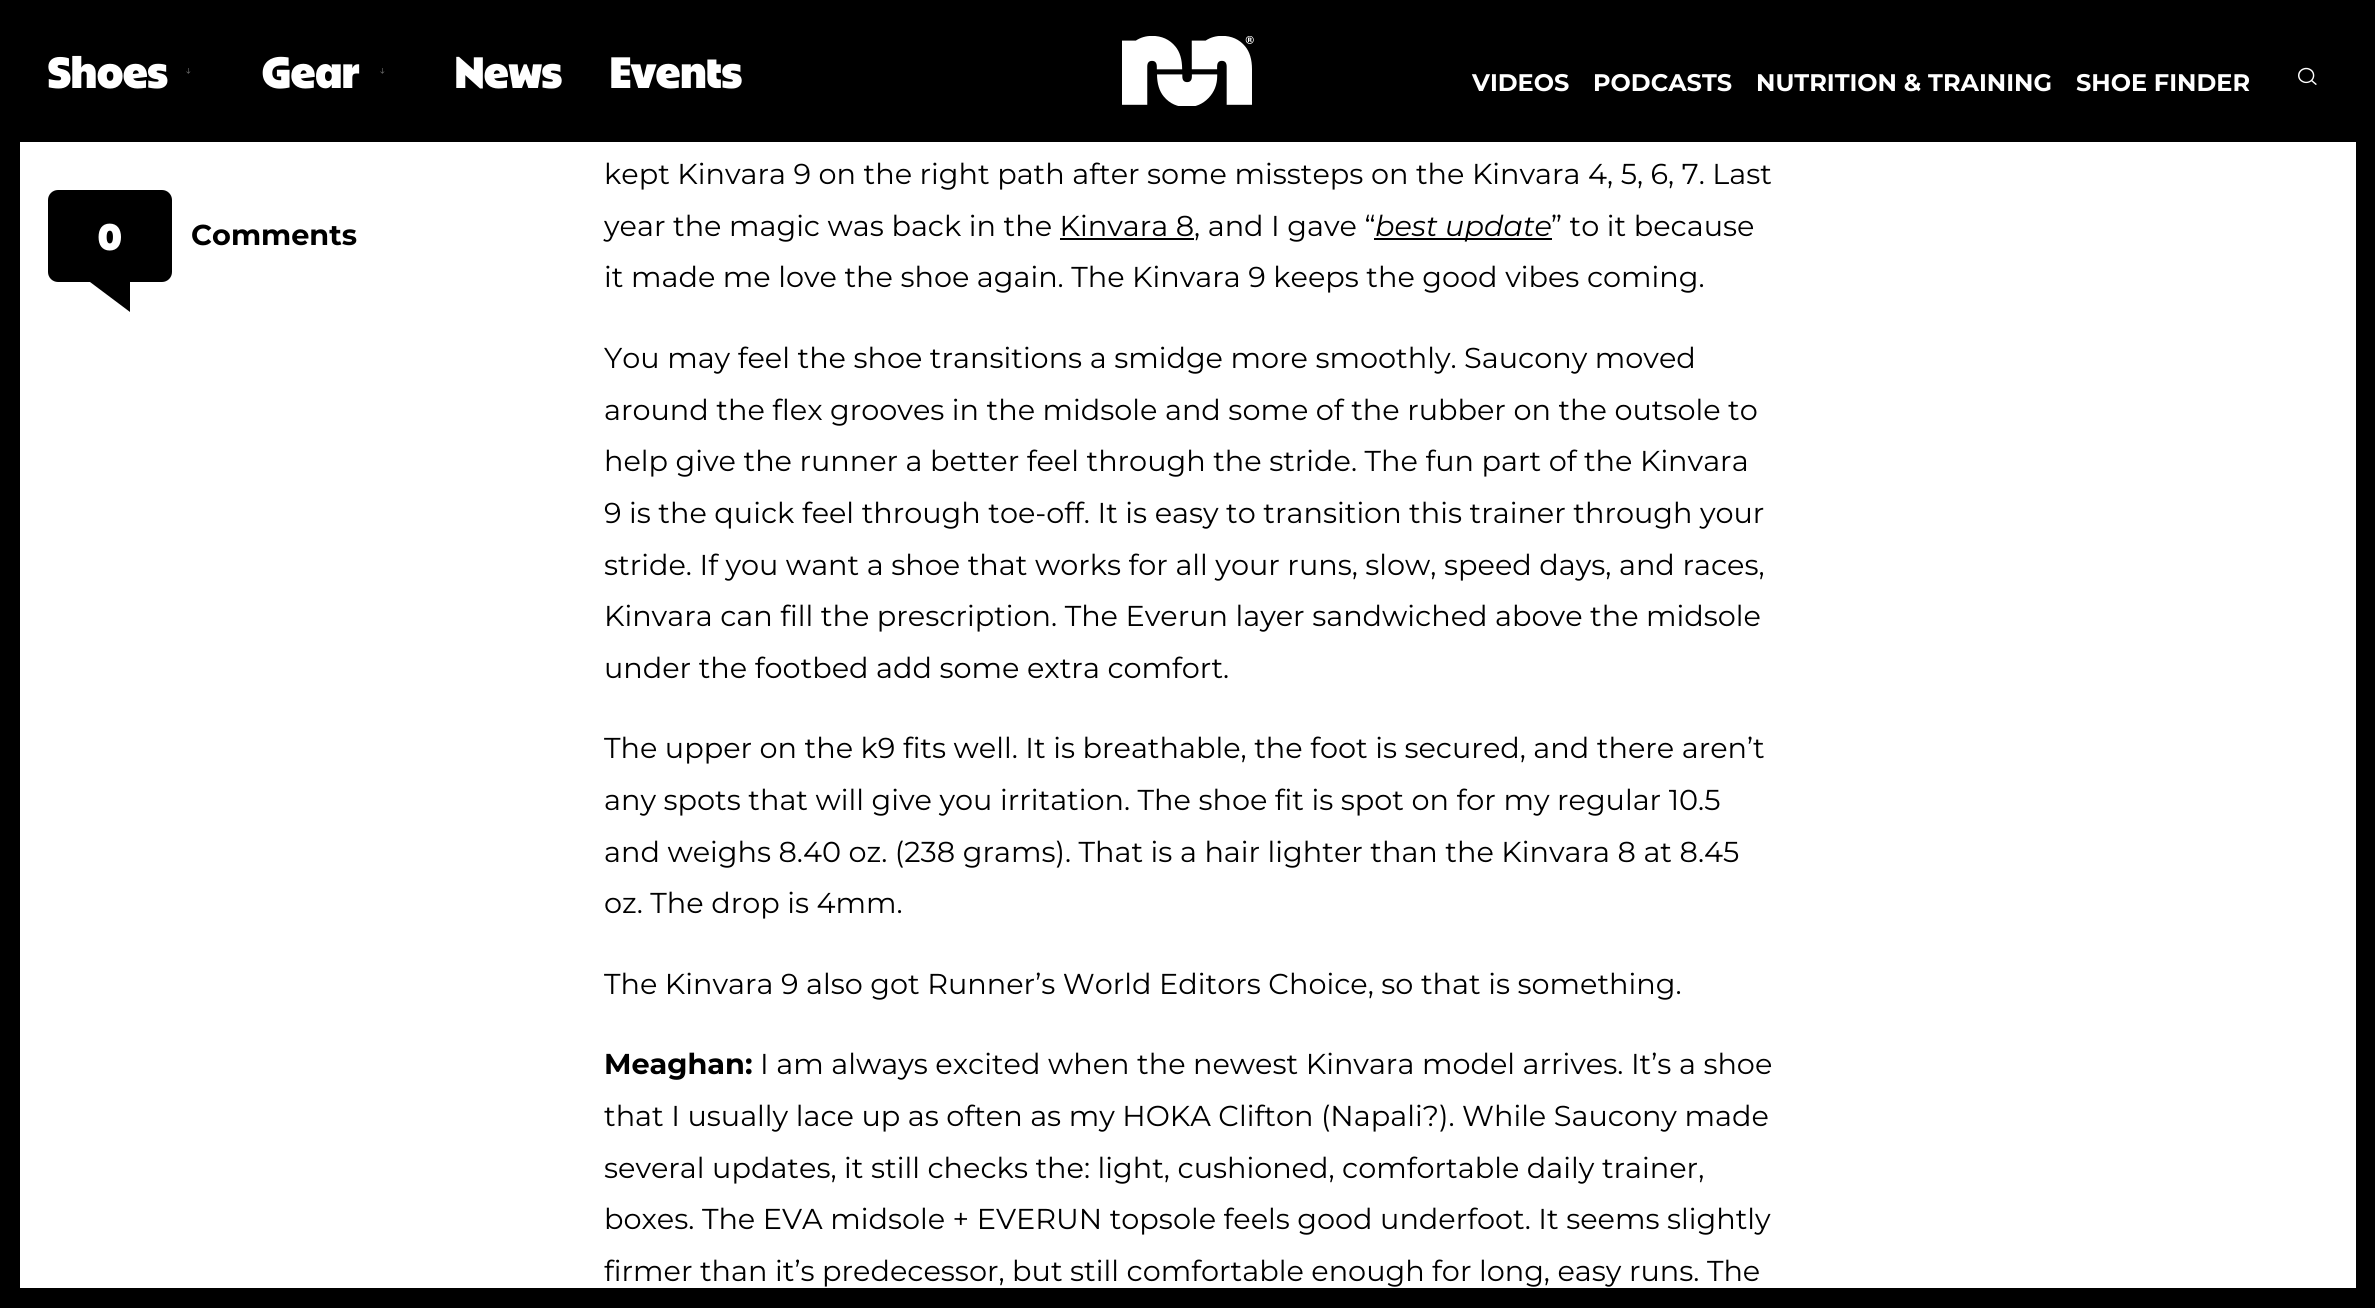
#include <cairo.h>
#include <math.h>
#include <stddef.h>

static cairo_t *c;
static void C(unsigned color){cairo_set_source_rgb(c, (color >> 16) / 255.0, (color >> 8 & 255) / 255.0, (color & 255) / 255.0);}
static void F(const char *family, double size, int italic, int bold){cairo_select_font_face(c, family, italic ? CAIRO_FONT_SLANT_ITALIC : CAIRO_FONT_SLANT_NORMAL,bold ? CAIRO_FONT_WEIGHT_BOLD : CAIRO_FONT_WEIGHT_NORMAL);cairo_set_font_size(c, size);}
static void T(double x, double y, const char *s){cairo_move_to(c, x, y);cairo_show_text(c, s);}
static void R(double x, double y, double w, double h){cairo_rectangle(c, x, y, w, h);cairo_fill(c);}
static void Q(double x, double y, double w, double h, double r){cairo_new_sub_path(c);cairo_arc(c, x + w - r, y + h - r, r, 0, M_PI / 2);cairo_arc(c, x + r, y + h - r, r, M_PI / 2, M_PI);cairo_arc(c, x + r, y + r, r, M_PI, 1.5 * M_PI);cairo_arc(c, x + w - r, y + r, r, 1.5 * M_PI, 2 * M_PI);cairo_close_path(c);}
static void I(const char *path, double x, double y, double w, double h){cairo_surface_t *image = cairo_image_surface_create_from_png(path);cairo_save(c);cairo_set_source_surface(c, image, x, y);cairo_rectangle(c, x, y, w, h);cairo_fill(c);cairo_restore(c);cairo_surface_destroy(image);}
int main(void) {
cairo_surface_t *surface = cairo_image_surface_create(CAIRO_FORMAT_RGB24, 2375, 1308);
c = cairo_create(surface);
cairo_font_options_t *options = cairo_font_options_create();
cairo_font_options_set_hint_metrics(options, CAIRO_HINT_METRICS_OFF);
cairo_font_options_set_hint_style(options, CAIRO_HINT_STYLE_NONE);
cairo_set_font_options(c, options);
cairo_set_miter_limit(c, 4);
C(0xffffff);
cairo_paint(c);
C(0x000000);
R(0,0,2375,142);
I("1.png",1122,36,132,70);
F("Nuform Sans",47.5,0,1);
C(0xffffff);
T(48,88,"Shoes");
I("2.png",186,68,5,6);
T(262,88,"Gear");
I("2.png",380,68,5,6);
T(455,88,"News");
T(610,88,"Events");
F("Montserrat",24,0,1);
T(1472,91,"VIDEOS");
T(1593,91,"PODCASTS");
T(1756,91,"NUTRITION & TRAINING");
T(2076,91,"SHOE FINDER");
I("3.png",2298,67,19,18);
C(0x000000);
R(2356,142,19,1146);
R(20,1288,2355,20);
R(0,142,20,1166);
Q(48,190,124,92,10);
cairo_fill(c);
F("Nuform Sans",40,0,1);
C(0xffffff);
T(98,250,"0");
C(0x000000);
cairo_new_path(c);
cairo_move_to(c,90,282);
cairo_line_to(c,130,312);
cairo_line_to(c,130,282);
cairo_close_path(c);
cairo_fill(c);
F("Montserrat",28.75,0,1);
T(191,245,"Comments");
F("Montserrat",28.75,0,0);
T(604,184,"kept Kinvara 9 on the right path after some missteps on the Kinvara 4, 5, 6, 7. Last");
T(604,236,"year the magic was back in the Kinvara 8, and I gave “");
R(1374,238,178,2);
F("Montserrat",28.75,1,0);
T(1375,236,"best update");
F("Montserrat",28.75,0,0);
T(1551,236,"” to it because");
R(1060,238,134,2);
T(604,287,"it made me love the shoe again. The Kinvara 9 keeps the good vibes coming.");
T(604,368,"You may feel the shoe transitions a smidge more smoothly. Saucony moved");
T(604,420,"around the flex grooves in the midsole and some of the rubber on the outsole to");
T(604,471,"help give the runner a better feel through the stride. The fun part of the Kinvara");
T(604,523,"9 is the quick feel through toe-off. It is easy to transition this trainer through your");
T(604,575,"stride. If you want a shoe that works for all your runs, slow, speed days, and races,");
T(604,626,"Kinvara can fill the prescription. The Everun layer sandwiched above the midsole");
T(604,678,"under the footbed add some extra comfort.");
T(604,758,"The upper on the k9 fits well. It is breathable, the foot is secured, and there aren’t");
T(604,810,"any spots that will give you irritation. The shoe fit is spot on for my regular 10.5");
T(604,862,"and weighs 8.40 oz. (238 grams). That is a hair lighter than the Kinvara 8 at 8.45");
T(604,913,"oz. The drop is 4mm.");
T(604,994,"The Kinvara 9 also got Runner’s World Editors Choice, so that is something.");
F("Montserrat",28.75,0,1);
T(604,1074,"Meaghan:");
F("Montserrat",28.75,0,0);
T(760,1074,"I am always excited when the newest Kinvara model arrives. It’s a shoe");
T(604,1126,"that I usually lace up as often as my HOKA Clifton (Napali?). While Saucony made");
T(604,1178,"several updates, it still checks the: light, cushioned, comfortable daily trainer,");
T(604,1229,"boxes. The EVA midsole + EVERUN topsole feels good underfoot. It seems slightly");
T(604,1281,"firmer than it’s predecessor, but still comfortable enough for long, easy runs. The");
cairo_surface_write_to_png(surface, "o.png");
cairo_font_options_destroy(options);
cairo_destroy(c);
cairo_surface_destroy(surface);
return 0;
}
